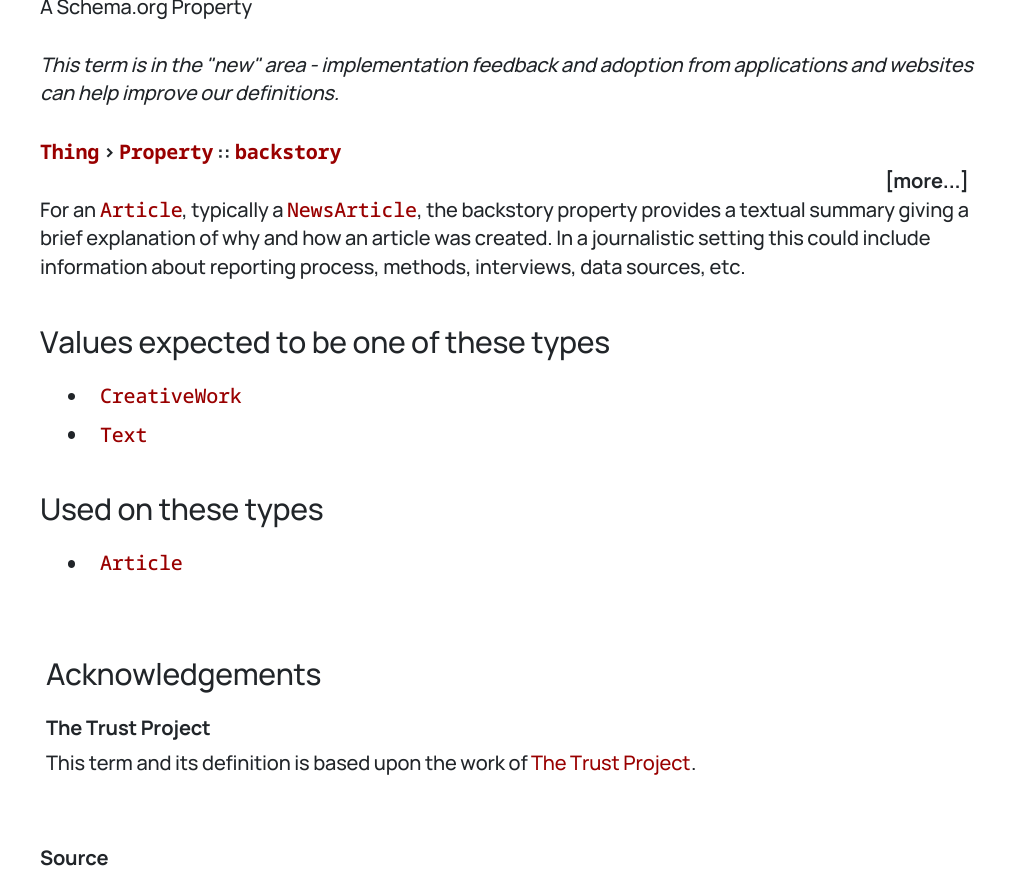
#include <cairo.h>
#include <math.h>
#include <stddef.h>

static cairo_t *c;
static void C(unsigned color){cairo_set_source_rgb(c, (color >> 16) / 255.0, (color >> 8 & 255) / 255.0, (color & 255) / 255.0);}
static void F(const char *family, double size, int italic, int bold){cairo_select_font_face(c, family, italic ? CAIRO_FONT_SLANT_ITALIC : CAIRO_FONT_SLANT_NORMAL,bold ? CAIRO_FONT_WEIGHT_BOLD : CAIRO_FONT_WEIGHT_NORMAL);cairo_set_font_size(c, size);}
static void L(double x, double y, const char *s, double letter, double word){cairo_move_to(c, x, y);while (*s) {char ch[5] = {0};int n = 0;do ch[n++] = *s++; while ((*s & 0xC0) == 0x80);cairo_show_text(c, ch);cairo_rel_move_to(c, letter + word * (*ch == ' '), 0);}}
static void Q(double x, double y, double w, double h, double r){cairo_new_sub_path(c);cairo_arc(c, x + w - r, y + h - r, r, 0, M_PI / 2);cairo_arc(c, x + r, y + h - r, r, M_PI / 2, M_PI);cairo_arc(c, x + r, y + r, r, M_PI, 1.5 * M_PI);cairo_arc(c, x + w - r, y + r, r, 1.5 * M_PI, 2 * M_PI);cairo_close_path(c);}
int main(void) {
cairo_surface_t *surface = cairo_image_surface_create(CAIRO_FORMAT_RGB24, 1015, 895);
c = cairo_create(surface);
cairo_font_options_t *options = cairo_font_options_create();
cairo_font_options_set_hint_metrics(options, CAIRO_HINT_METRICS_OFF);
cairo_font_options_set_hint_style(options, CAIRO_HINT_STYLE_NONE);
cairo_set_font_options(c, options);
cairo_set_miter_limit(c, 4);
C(0xffffff);
cairo_paint(c);
F("Manrope Medium",20,0,0);
C(0x212529);
L(40,14,"A Schema.org Property",-.2,0);
F("Manrope Medium",20,1,0);
L(40,72,"This term is in the \"new\" area - implementation feedback and adoption from applications and websites",-.2,0);
L(40,100,"can help improve our definitions.",-.2,0);
F("Noto Sans Mono",20,0,1);
C(0x990000);
L(40,159,"Thing",-.2,0);
F("Manrope",20,0,1);
C(0x212529);
L(103,159,">",-.2,0);
F("Noto Sans Mono",20,0,1);
C(0x990000);
L(119,159,"Property",-.2,0);
F("Manrope",20,0,1);
C(0x212529);
L(217,159,"::",-.2,0);
F("Noto Sans Mono",20,0,1);
C(0x990000);
L(235,159,"backstory",-.2,0);
F("Manrope",20,0,1);
C(0x212529);
L(885,188,"[more...]",-.2,0);
F("Manrope Medium",20,0,0);
L(40,217,"For an",-.2,0);
F("Noto Sans Mono Medium",20,0,0);
C(0x990000);
L(100,217,"Article",-.2,0);
F("Manrope Medium",20,0,0);
C(0x212529);
L(182,217,", typically a",-.2,0);
F("Noto Sans Mono Medium",20,0,0);
C(0x990000);
L(287,217,"NewsArticle",-.2,0);
F("Manrope Medium",20,0,0);
C(0x212529);
L(417,217,", the backstory property provides a textual summary giving a",-.2,0);
L(40,245,"brief explanation of why and how an article was created. In a journalistic setting this could include",-.2,0);
L(40,274,"information about reporting process, methods, interviews, data sources, etc.",-.2,0);
F("Manrope Medium",30,0,0);
L(40,353,"Values expected to be one of these types",-.3,0);
cairo_new_path(c);
cairo_arc(c,71.5,396.5,3.5,0,2 * M_PI);
cairo_fill(c);
F("Noto Sans Mono Medium",20,0,0);
C(0x990000);
L(100,403,"CreativeWork",-.2,0);
C(0x212529);
Q(68,431,7,8,3.5);
cairo_fill(c);
C(0x990000);
L(100,442,"Text",-.2,0);
F("Manrope Medium",30,0,0);
C(0x212529);
L(40,520,"Used on these types",-.3,0);
Q(68,560,7,8,3.5);
cairo_fill(c);
F("Noto Sans Mono Medium",20,0,0);
C(0x990000);
L(100,570,"Article",-.2,0);
F("Manrope Medium",30,0,0);
C(0x212529);
L(46,685,"Acknowledgements",-.3,0);
F("Manrope",20,0,1);
L(46,735,"The Trust Project",-.2,0);
F("Manrope Medium",20,0,0);
L(46,770,"This term and its definition is based upon the work of",-.2,0);
C(0x990000);
L(531,770,"The Trust Project",-.2,0);
C(0x212529);
L(691,770,".",-.2,0);
F("Manrope",20,0,1);
L(40,865,"Source",-.2,0);
cairo_surface_write_to_png(surface, "o.png");
cairo_font_options_destroy(options);
cairo_destroy(c);
cairo_surface_destroy(surface);
return 0;
}
